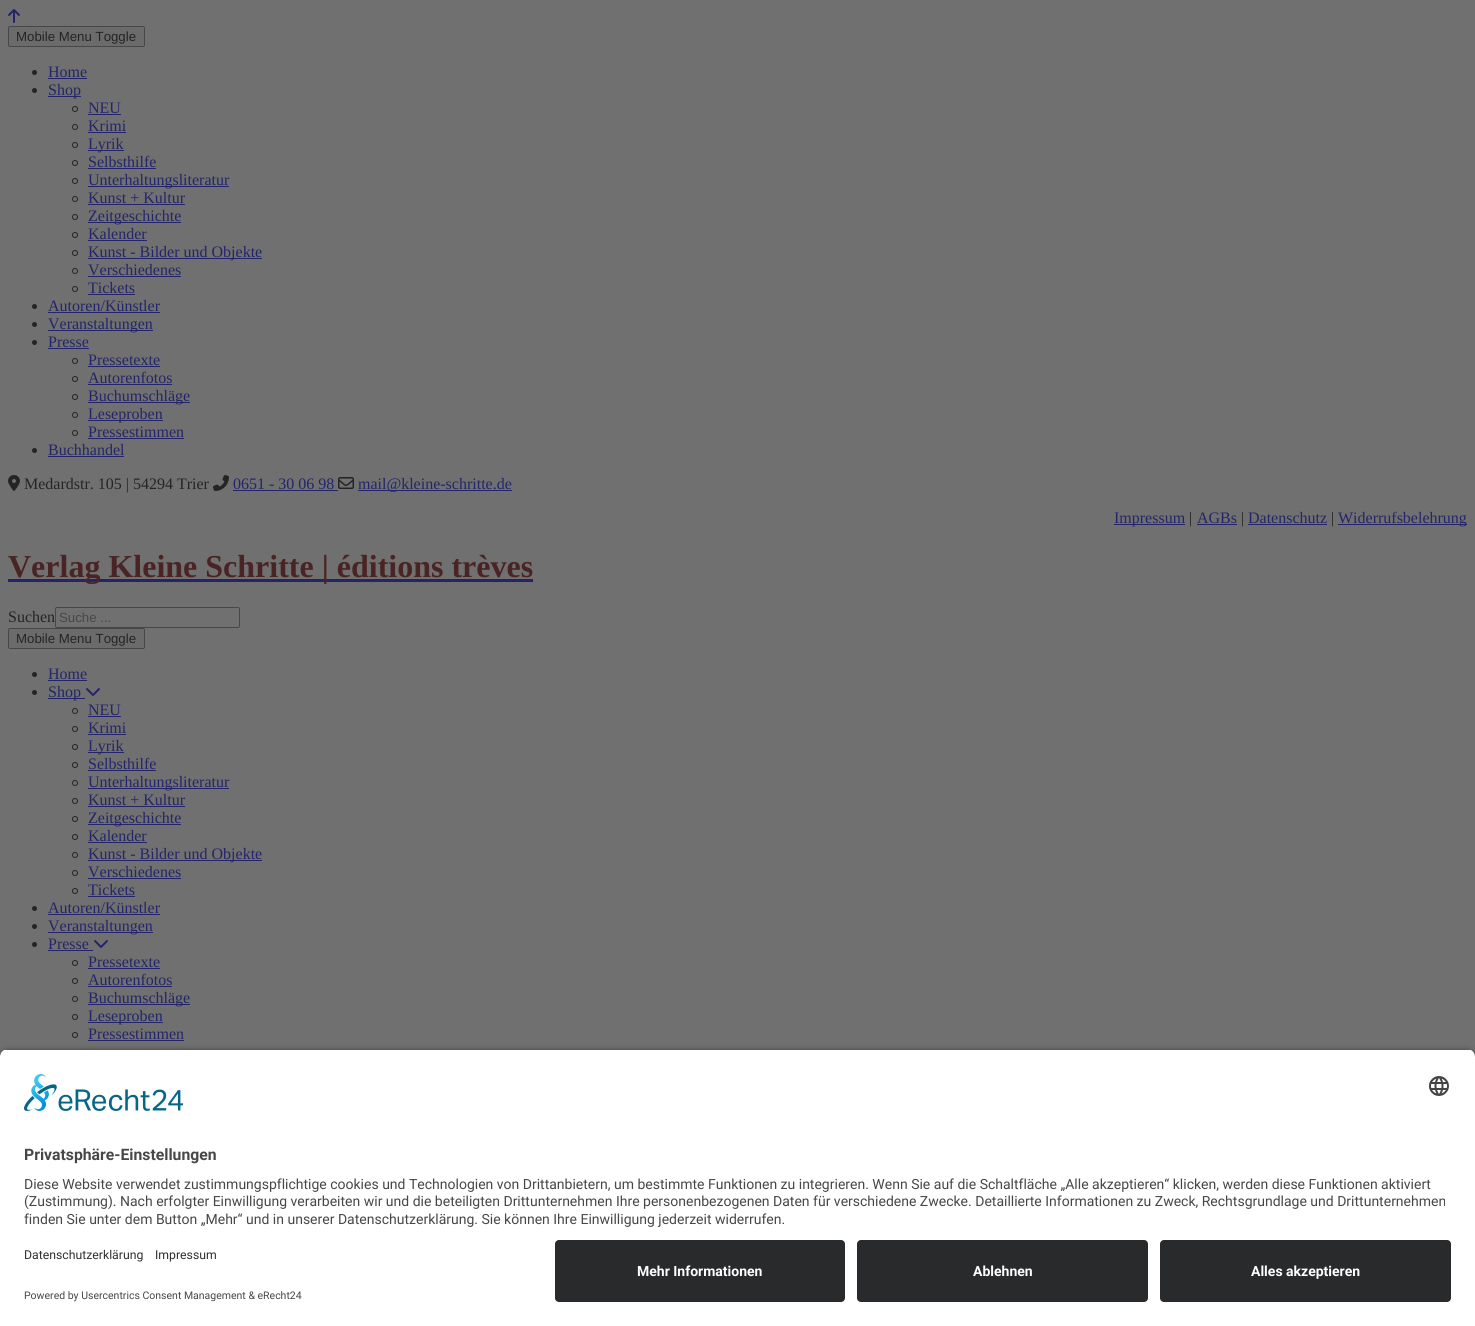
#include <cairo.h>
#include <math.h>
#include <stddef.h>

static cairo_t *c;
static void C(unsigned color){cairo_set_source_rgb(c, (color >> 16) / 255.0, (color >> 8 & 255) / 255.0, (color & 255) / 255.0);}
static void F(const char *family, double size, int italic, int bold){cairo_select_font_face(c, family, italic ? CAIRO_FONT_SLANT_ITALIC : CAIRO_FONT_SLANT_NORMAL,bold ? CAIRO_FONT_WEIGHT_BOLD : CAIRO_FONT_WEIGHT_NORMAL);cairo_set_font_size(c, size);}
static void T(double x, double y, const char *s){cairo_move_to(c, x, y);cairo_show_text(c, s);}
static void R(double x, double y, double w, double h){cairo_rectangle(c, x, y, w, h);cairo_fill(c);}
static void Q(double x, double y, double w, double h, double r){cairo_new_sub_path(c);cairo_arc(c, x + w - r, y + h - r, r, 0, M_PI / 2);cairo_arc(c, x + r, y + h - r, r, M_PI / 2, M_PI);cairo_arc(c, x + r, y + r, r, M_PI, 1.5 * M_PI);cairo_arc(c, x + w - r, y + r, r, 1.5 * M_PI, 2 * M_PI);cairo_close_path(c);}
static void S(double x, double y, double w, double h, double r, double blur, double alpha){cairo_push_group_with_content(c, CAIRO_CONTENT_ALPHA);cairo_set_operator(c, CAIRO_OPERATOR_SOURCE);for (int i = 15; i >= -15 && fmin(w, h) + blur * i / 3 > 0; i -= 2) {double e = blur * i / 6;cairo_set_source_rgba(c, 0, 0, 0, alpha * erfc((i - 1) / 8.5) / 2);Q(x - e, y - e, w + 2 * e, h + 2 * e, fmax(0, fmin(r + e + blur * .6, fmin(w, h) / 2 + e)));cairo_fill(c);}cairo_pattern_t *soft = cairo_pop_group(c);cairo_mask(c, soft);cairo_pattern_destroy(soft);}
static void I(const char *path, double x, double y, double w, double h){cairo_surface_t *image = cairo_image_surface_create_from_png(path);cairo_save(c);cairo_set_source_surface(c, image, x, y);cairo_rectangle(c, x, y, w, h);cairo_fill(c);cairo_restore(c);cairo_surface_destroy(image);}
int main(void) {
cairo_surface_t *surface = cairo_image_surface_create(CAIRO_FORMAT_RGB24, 1475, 1326);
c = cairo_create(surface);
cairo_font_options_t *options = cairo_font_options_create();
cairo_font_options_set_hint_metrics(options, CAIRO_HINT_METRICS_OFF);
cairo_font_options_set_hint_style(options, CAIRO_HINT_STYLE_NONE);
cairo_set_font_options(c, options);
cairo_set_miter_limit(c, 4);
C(0x707070);
cairo_paint(c);
I("1.png",8,9,12,14);
C(0x6b6b6b);
Q(8.5,26.5,136,20,1.5);
cairo_fill_preserve(c);
C(0x474747);
cairo_set_line_width(c,1);
cairo_stroke(c);
F("Liberation Sans",13.25,0,0);
C(0x242424);
T(16,41,"Mobile Menu Toggle");
cairo_new_path(c);
cairo_arc(c,34.5,72.5,2.5,0,2 * M_PI);
cairo_fill(c);
F("Liberation Serif",16,0,0);
C(0x24246b);
T(48,77,"Home");
R(48,78,39,1);
C(0x242424);
cairo_new_path(c);
cairo_arc(c,34.5,90.5,2.5,0,2 * M_PI);
cairo_fill(c);
C(0x24246b);
R(48,96,33,1);
T(48,95,"Shop");
cairo_new_path(c);
cairo_arc(c,75,109,2.5,0,2 * M_PI);
C(0x242424);
cairo_stroke(c);
C(0x24246b);
T(88,113,"NEU");
R(88,114,33,1);
cairo_new_path(c);
cairo_arc(c,75,127,2.5,0,2 * M_PI);
C(0x242424);
cairo_stroke(c);
C(0x24246b);
T(88,131,"Krimi");
R(88,132,38,1);
cairo_new_path(c);
cairo_arc(c,75,145,2.5,0,2 * M_PI);
C(0x242424);
cairo_stroke(c);
C(0x24246b);
R(88,150,36,1);
T(88,149,"Lyrik");
cairo_new_path(c);
cairo_arc(c,75,163,2.5,0,2 * M_PI);
C(0x242424);
cairo_stroke(c);
C(0x24246b);
T(88,167,"Selbsthilfe");
R(88,168,68,1);
cairo_new_path(c);
cairo_arc(c,75,181,2.5,0,2 * M_PI);
C(0x242424);
cairo_stroke(c);
C(0x24246b);
R(88,186,141,1);
T(88,185,"Unterhaltungsliteratur");
cairo_new_path(c);
cairo_arc(c,75,199,2.5,0,2 * M_PI);
C(0x242424);
cairo_stroke(c);
C(0x24246b);
T(88,203,"Kunst + Kultur");
R(88,204,97,1);
cairo_new_path(c);
cairo_arc(c,75,217,2.5,0,2 * M_PI);
C(0x242424);
cairo_stroke(c);
C(0x24246b);
R(88,222,93,1);
T(88,221,"Zeitgeschichte");
cairo_new_path(c);
cairo_arc(c,75,235,2.5,0,2 * M_PI);
C(0x242424);
cairo_stroke(c);
C(0x24246b);
T(88,239,"Kalender");
R(88,240,59,1);
cairo_new_path(c);
cairo_arc(c,75,253,2.5,0,2 * M_PI);
C(0x242424);
cairo_stroke(c);
C(0x24246b);
R(88,258,174,1);
T(88,257,"Kunst - Bilder und Objekte");
cairo_new_path(c);
cairo_arc(c,75,271,2.5,0,2 * M_PI);
C(0x242424);
cairo_stroke(c);
C(0x24246b);
T(88,275,"Verschiedenes");
R(88,276,93,1);
cairo_new_path(c);
cairo_arc(c,75,289,2.5,0,2 * M_PI);
C(0x242424);
cairo_stroke(c);
C(0x24246b);
T(88,293,"Tickets");
R(88,294,47,1);
C(0x242424);
cairo_new_path(c);
cairo_arc(c,34.5,306.5,2.5,0,2 * M_PI);
cairo_fill(c);
C(0x24246b);
T(48,311,"Autoren/Künstler");
R(48,312,112,1);
C(0x242424);
cairo_new_path(c);
cairo_arc(c,34.5,324.5,2.5,0,2 * M_PI);
cairo_fill(c);
C(0x24246b);
R(48,330,105,1);
T(48,329,"Veranstaltungen");
C(0x242424);
cairo_new_path(c);
cairo_arc(c,34.5,342.5,2.5,0,2 * M_PI);
cairo_fill(c);
C(0x24246b);
T(48,347,"Presse");
R(48,348,41,1);
cairo_new_path(c);
cairo_arc(c,75,361,2.5,0,2 * M_PI);
C(0x242424);
cairo_stroke(c);
C(0x24246b);
T(88,365,"Pressetexte");
R(88,366,72,1);
cairo_new_path(c);
cairo_arc(c,75,379,2.5,0,2 * M_PI);
C(0x242424);
cairo_stroke(c);
C(0x24246b);
T(88,383,"Autorenfotos");
R(88,384,84,1);
cairo_new_path(c);
cairo_arc(c,75,397,2.5,0,2 * M_PI);
C(0x242424);
cairo_stroke(c);
C(0x24246b);
R(88,402,102,1);
T(88,401,"Buchumschläge");
cairo_new_path(c);
cairo_arc(c,75,415,2.5,0,2 * M_PI);
C(0x242424);
cairo_stroke(c);
C(0x24246b);
R(88,420,75,1);
T(88,419,"Leseproben");
cairo_new_path(c);
cairo_arc(c,75,433,2.5,0,2 * M_PI);
C(0x242424);
cairo_stroke(c);
C(0x24246b);
T(88,437,"Pressestimmen");
R(88,438,96,1);
C(0x242424);
cairo_new_path(c);
cairo_arc(c,34.5,450.5,2.5,0,2 * M_PI);
cairo_fill(c);
C(0x24246b);
T(48,455,"Buchhandel");
R(48,456,76,1);
I("2.png",8,475,12,16);
C(0x242424);
T(24,489,"Medardstr. 105 | 54294 Trier");
I("3.png",213,475,16,16);
C(0x24246b);
T(233,489,"0651 - 30 06 98");
R(233,490,105,1);
I("4.png",338,477,16,12);
R(358,490,154,1);
T(358,489,"mail@kleine-schritte.de");
R(1114,524,71,1);
T(1114,523,"Impressum");
C(0x242424);
T(1189,523,"|");
C(0x24246b);
T(1197,523,"AGBs");
R(1197,524,40,1);
C(0x242424);
T(1241,523,"|");
C(0x24246b);
T(1248,523,"Datenschutz");
R(1248,524,79,1);
C(0x242424);
T(1331,523,"|");
C(0x24246b);
R(1338,524,129,1);
T(1338,523,"Widerrufsbelehrung");
R(8,579,525,3);
F("Liberation Serif",32,0,1);
C(0x4a2424);
T(8,577,"Verlag Kleine Schritte | éditions trèves");
F("Liberation Serif",16,0,0);
C(0x242424);
T(8,622,"Suchen");
Q(55.5,607.5,184,20,1.5);
C(0x474747);
cairo_stroke(c);
F("Liberation Sans",13.25,0,0);
T(59,622,"Suche ...");
C(0x6b6b6b);
Q(8.5,628.5,136,20,1.5);
cairo_fill_preserve(c);
C(0x474747);
cairo_stroke(c);
C(0x242424);
T(16,643,"Mobile Menu Toggle");
cairo_new_path(c);
cairo_arc(c,34.5,674.5,2.5,0,2 * M_PI);
cairo_fill(c);
F("Liberation Serif",16,0,0);
C(0x24246b);
T(48,679,"Home");
R(48,680,39,1);
C(0x242424);
cairo_new_path(c);
cairo_arc(c,34.5,692.5,2.5,0,2 * M_PI);
cairo_fill(c);
C(0x24246b);
R(48,698,37,1);
T(48,697,"Shop");
I("5.png",86,688,14,8);
cairo_arc(c,75,711,2.5,0,2 * M_PI);
C(0x242424);
cairo_stroke(c);
C(0x24246b);
T(88,715,"NEU");
R(88,716,33,1);
cairo_new_path(c);
cairo_arc(c,75,729,2.5,0,2 * M_PI);
C(0x242424);
cairo_stroke(c);
C(0x24246b);
T(88,733,"Krimi");
R(88,734,38,1);
cairo_new_path(c);
cairo_arc(c,75,747,2.5,0,2 * M_PI);
C(0x242424);
cairo_stroke(c);
C(0x24246b);
R(88,752,36,1);
T(88,751,"Lyrik");
cairo_new_path(c);
cairo_arc(c,75,765,2.5,0,2 * M_PI);
C(0x242424);
cairo_stroke(c);
C(0x24246b);
T(88,769,"Selbsthilfe");
R(88,770,68,1);
cairo_new_path(c);
cairo_arc(c,75,783,2.5,0,2 * M_PI);
C(0x242424);
cairo_stroke(c);
C(0x24246b);
R(88,788,141,1);
T(88,787,"Unterhaltungsliteratur");
cairo_new_path(c);
cairo_arc(c,75,801,2.5,0,2 * M_PI);
C(0x242424);
cairo_stroke(c);
C(0x24246b);
T(88,805,"Kunst + Kultur");
R(88,806,97,1);
cairo_new_path(c);
cairo_arc(c,75,819,2.5,0,2 * M_PI);
C(0x242424);
cairo_stroke(c);
C(0x24246b);
R(88,824,93,1);
T(88,823,"Zeitgeschichte");
cairo_new_path(c);
cairo_arc(c,75,837,2.5,0,2 * M_PI);
C(0x242424);
cairo_stroke(c);
C(0x24246b);
T(88,841,"Kalender");
R(88,842,59,1);
cairo_new_path(c);
cairo_arc(c,75,855,2.5,0,2 * M_PI);
C(0x242424);
cairo_stroke(c);
C(0x24246b);
R(88,860,174,1);
T(88,859,"Kunst - Bilder und Objekte");
cairo_new_path(c);
cairo_arc(c,75,873,2.5,0,2 * M_PI);
C(0x242424);
cairo_stroke(c);
C(0x24246b);
T(88,877,"Verschiedenes");
R(88,878,93,1);
cairo_new_path(c);
cairo_arc(c,75,891,2.5,0,2 * M_PI);
C(0x242424);
cairo_stroke(c);
C(0x24246b);
T(88,895,"Tickets");
R(88,896,47,1);
C(0x242424);
cairo_new_path(c);
cairo_arc(c,34.5,908.5,2.5,0,2 * M_PI);
cairo_fill(c);
C(0x24246b);
T(48,913,"Autoren/Künstler");
R(48,914,112,1);
C(0x242424);
cairo_new_path(c);
cairo_arc(c,34.5,926.5,2.5,0,2 * M_PI);
cairo_fill(c);
C(0x24246b);
R(48,932,105,1);
T(48,931,"Veranstaltungen");
C(0x242424);
cairo_new_path(c);
cairo_arc(c,34.5,944.5,2.5,0,2 * M_PI);
cairo_fill(c);
C(0x24246b);
T(48,949,"Presse");
R(48,950,45,1);
I("5.png",94,940,14,8);
cairo_arc(c,75,963,2.5,0,2 * M_PI);
C(0x242424);
cairo_stroke(c);
C(0x24246b);
T(88,967,"Pressetexte");
R(88,968,72,1);
cairo_new_path(c);
cairo_arc(c,75,981,2.5,0,2 * M_PI);
C(0x242424);
cairo_stroke(c);
C(0x24246b);
T(88,985,"Autorenfotos");
R(88,986,84,1);
cairo_new_path(c);
cairo_arc(c,75,999,2.5,0,2 * M_PI);
C(0x242424);
cairo_stroke(c);
C(0x24246b);
R(88,1004,102,1);
T(88,1003,"Buchumschläge");
cairo_new_path(c);
cairo_arc(c,75,1017,2.5,0,2 * M_PI);
C(0x242424);
cairo_stroke(c);
C(0x24246b);
R(88,1022,75,1);
T(88,1021,"Leseproben");
cairo_new_path(c);
cairo_arc(c,75,1035,2.5,0,2 * M_PI);
C(0x242424);
cairo_stroke(c);
C(0x24246b);
T(88,1039,"Pressestimmen");
R(88,1040,96,1);
C(0x000000);
S(0,1052,1475,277,8,3.5,.8);
cairo_save(c);
cairo_new_path(c);
cairo_move_to(c,8,1049);
cairo_line_to(c,1467,1049);
cairo_curve_to(c,1471.5,1049,1475,1052.5,1475,1057);
cairo_line_to(c,1475,1232);
cairo_line_to(c,0,1232);
cairo_line_to(c,0,1057);
cairo_curve_to(c,0,1052.5,3.5,1049,8,1049);
cairo_close_path(c);
cairo_clip(c);
C(0xffffff);
R(0,1050,1475,182);
cairo_restore(c);
I("6.png",24,1074,160,37);
I("7.png",1429,1076,20,20);
F("Roboto",15.75,0,1);
C(0x474747);
T(24,1160,"Privatsphäre-Einstellungen");
F("Roboto",14,0,0);
T(24,1189,"Diese Website verwendet zustimmungspflichtige cookies und Technologien von Drittanbietern, um bestimmte Funktionen zu integrieren. Wenn Sie auf die Schaltfläche „Alle akzeptieren“ klicken, werden diese Funktionen aktiviert");
T(24,1206,"(Zustimmung). Nach erfolgter Einwilligung verarbeiten wir und die beteiligten Drittunternehmen Ihre personenbezogenen Daten für verschiedene Zwecke. Detaillierte Informationen zu Zweck, Rechtsgrundlage und Drittunternehmen");
T(24,1224,"finden Sie unter dem Button „Mehr“ und in unserer Datenschutzerklärung. Sie können Ihre Einwilligung jederzeit widerrufen.");
C(0xffffff);
R(0,1232,1475,94);
F("Roboto",12.25,0,0);
C(0x303030);
T(24,1259,"Datenschutzerklärung");
T(155,1259,"Impressum");
F("Roboto",10.5,0,0);
C(0x474747);
T(24,1299,"Powered by Usercentrics Consent Management & eRecht24");
C(0x292a2b);
Q(555,1240,290,62,4);
cairo_fill(c);
F("Roboto",14,0,1);
C(0xffffff);
T(637,1276,"Mehr Informationen");
C(0x292a2b);
Q(857,1240,291,62,4);
cairo_fill(c);
C(0xffffff);
T(973,1276,"Ablehnen");
C(0x292a2b);
Q(1160,1240,291,62,4);
cairo_fill(c);
C(0xffffff);
T(1251,1276,"Alles akzeptieren");
cairo_surface_write_to_png(surface, "o.png");
cairo_font_options_destroy(options);
cairo_destroy(c);
cairo_surface_destroy(surface);
return 0;
}
